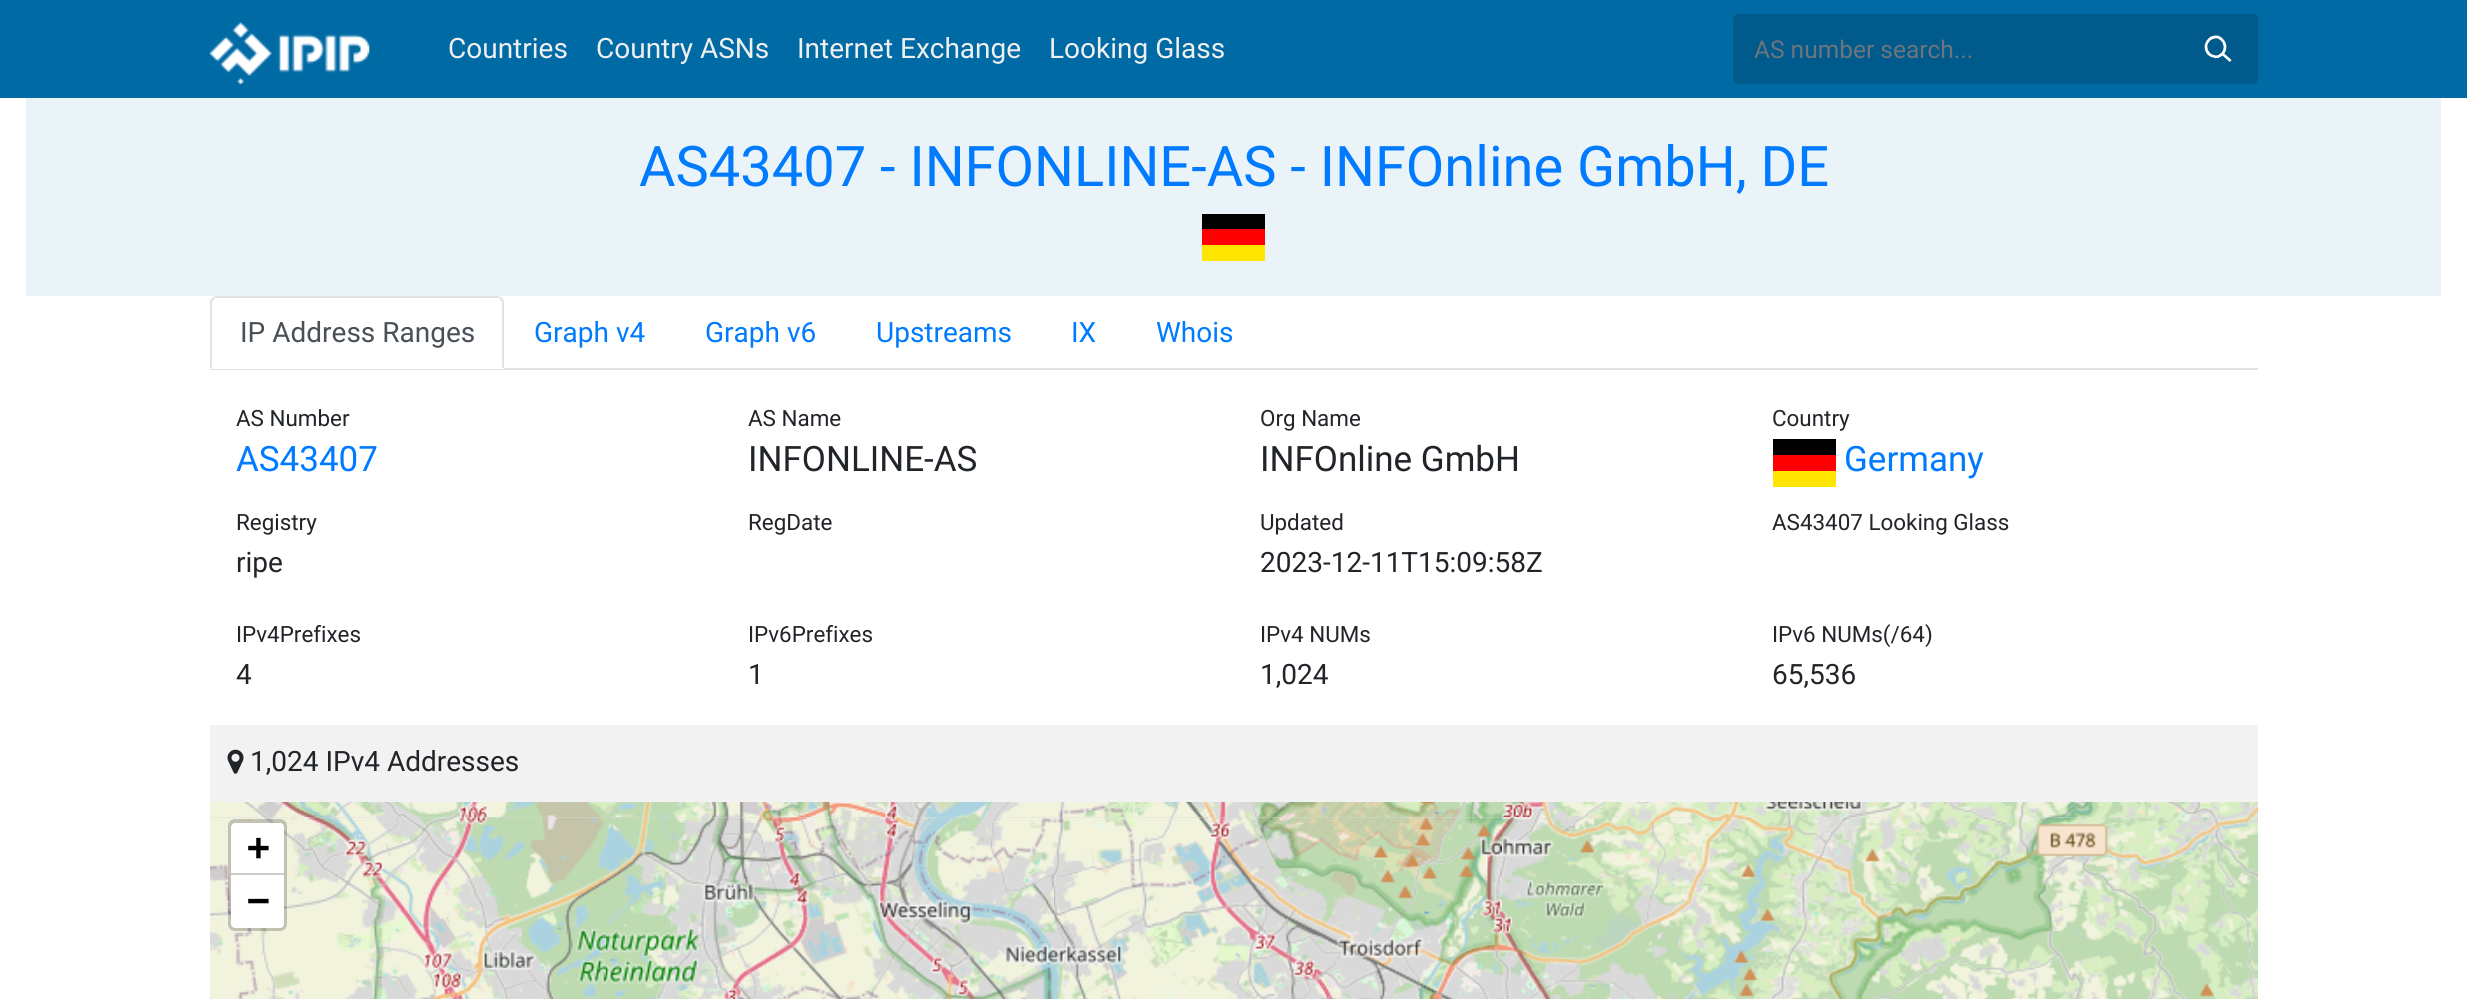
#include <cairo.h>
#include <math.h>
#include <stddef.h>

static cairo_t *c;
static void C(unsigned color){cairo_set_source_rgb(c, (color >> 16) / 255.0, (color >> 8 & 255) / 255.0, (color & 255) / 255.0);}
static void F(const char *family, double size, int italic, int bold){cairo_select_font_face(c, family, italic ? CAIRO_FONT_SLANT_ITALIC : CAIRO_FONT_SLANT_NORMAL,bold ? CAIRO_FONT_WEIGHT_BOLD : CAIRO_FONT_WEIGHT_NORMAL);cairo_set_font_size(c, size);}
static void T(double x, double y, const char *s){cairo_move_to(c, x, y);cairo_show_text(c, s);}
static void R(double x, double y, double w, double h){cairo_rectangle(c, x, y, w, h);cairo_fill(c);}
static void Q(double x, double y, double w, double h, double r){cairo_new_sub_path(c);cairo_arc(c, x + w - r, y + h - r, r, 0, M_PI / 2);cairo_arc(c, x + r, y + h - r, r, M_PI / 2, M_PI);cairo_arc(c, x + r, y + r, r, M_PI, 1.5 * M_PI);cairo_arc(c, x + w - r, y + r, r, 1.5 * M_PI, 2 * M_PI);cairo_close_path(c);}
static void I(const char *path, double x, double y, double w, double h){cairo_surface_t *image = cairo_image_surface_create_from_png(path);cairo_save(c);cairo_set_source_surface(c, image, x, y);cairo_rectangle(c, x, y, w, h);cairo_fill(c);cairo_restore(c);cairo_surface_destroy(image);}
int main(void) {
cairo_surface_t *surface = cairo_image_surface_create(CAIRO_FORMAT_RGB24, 2467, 999);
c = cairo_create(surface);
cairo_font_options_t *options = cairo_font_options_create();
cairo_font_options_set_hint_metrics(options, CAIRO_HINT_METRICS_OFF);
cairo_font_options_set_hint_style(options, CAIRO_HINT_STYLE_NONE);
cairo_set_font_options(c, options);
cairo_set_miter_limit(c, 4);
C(0xffffff);
cairo_paint(c);
C(0x006aa5);
R(0,0,2467,98);
I("1.png",210,22,160,62);
F("Roboto",28,0,0);
C(0xefefef);
T(448,58,"Countries");
T(596,58,"Country ASNs");
T(797,58,"Internet Exchange");
T(1049,58,"Looking Glass");
C(0x005a8c);
Q(1733,14,525,70,5);
cairo_fill(c);
F("Roboto",24.5,0,0);
C(0x6c757d);
T(1754,58,"AS number search...");
I("2.png",2204,35,28,27);
C(0xeaf3f8);
R(26,98,2415,198);
F("Roboto",56,0,0);
C(0x007bff);
T(639,186,"AS43407 - INFONLINE-AS - INFOnline GmbH, DE");
C(0x000000);
R(1202,214,63,15);
C(0xff0000);
R(1202,229,63,16);
C(0xffe600);
R(1202,245,63,16);
C(0xdee2e6);
R(210,368,2048,2);
C(0xffffff);
cairo_new_path(c);
cairo_move_to(c,217,296);
cairo_line_to(c,497,296);
cairo_curve_to(c,501,296,504,299,504,303);
cairo_line_to(c,504,369);
cairo_line_to(c,210,369);
cairo_line_to(c,210,303);
cairo_curve_to(c,210,299,213,296,217,296);
cairo_close_path(c);
cairo_fill(c);
C(0xdee2e6);
cairo_new_path(c);
cairo_move_to(c,217,296);
cairo_curve_to(c,215,296,213,297,212,298);
cairo_line_to(c,214,299);
cairo_curve_to(c,214,298,216,298,217,298);
cairo_line_to(c,497,298);
cairo_curve_to(c,498,298,500,298,500,299);
cairo_line_to(c,502,298);
cairo_curve_to(c,501,297,499,296,497,296);
cairo_close_path(c);
cairo_fill(c);
cairo_new_path(c);
cairo_move_to(c,502,298);
cairo_curve_to(c,503,299,504,301,504,303);
cairo_line_to(c,504,369);
cairo_line_to(c,502,367);
cairo_line_to(c,502,302);
cairo_line_to(c,500,299);
cairo_close_path(c);
cairo_fill(c);
C(0xffffff);
cairo_new_path(c);
cairo_move_to(c,504,369);
cairo_line_to(c,210,369);
cairo_line_to(c,212,367);
cairo_line_to(c,212,368);
cairo_line_to(c,502,368);
cairo_line_to(c,502,367);
cairo_close_path(c);
cairo_fill(c);
C(0xdee2e6);
cairo_new_path(c);
cairo_move_to(c,210,303);
cairo_line_to(c,210,369);
cairo_line_to(c,212,367);
cairo_line_to(c,212,302);
cairo_line_to(c,214,299);
cairo_line_to(c,212,298);
cairo_curve_to(c,211,299,210,301,210,303);
cairo_close_path(c);
cairo_fill(c);
F("Roboto",28,0,0);
C(0x495057);
T(240,342,"IP Address Ranges");
C(0x007bff);
T(534,342,"Graph v4");
T(705,342,"Graph v6");
T(876,342,"Upstreams");
T(1071,342,"IX");
T(1156,342,"Whois");
F("Roboto",22.4,0,0);
C(0x212529);
T(236,426,"AS Number");
F("Roboto",35,0,0);
C(0x007bff);
T(236,471,"AS43407");
F("Roboto",22.4,0,0);
C(0x212529);
T(748,426,"AS Name");
F("Roboto",35,0,0);
T(748,471,"INFONLINE-AS");
F("Roboto",22.4,0,0);
T(1260,426,"Org Name");
F("Roboto",35,0,0);
T(1260,471,"INFOnline GmbH");
F("Roboto",22.4,0,0);
T(1772,426,"Country");
F("Roboto",35,0,0);
C(0x007bff);
T(1844,471,"Germany");
C(0xffe600);
R(1773,471,63,16);
C(0x000000);
R(1773,439,63,16);
C(0xff0000);
R(1773,455,63,16);
F("Roboto",22.4,0,0);
C(0x212529);
T(236,530,"Registry");
F("Roboto",28,0,0);
T(236,572,"ripe");
F("Roboto",22.4,0,0);
T(748,530,"RegDate");
T(1260,530,"Updated");
F("Roboto",28,0,0);
T(1260,572,"2023-12-11T15:09:58Z");
F("Roboto",22.4,0,0);
T(1772,530,"AS43407 Looking Glass");
T(236,642,"IPv4Prefixes");
F("Roboto",28,0,0);
T(236,684,"4");
F("Roboto",22.4,0,0);
T(748,642,"IPv6Prefixes");
F("Roboto",28,0,0);
T(748,684,"1");
F("Roboto",22.4,0,0);
T(1260,642,"IPv4 NUMs");
F("Roboto",28,0,0);
T(1260,684,"1,024");
F("Roboto",22.4,0,0);
T(1772,642,"IPv6 NUMs(/64)");
F("Roboto",28,0,0);
T(1772,684,"65,536");
C(0xf2f2f2);
R(210,725,2048,77);
I("3.png",227,749,17,25);
C(0x212529);
T(250,771,"1,024 IPv4 Addresses");
C(0xdddddd);
R(210,817,2048,1);
I("4.png",210,802,396,15);
I("5.png",606,802,448,15);
I("6.png",1054,802,448,15);
I("7.png",1502,802,448,15);
I("8.png",1950,802,308,15);
I("9.png",210,817,396,182);
I("10.png",606,817,448,182);
I("11.png",1054,817,448,182);
I("12.png",1502,817,448,182);
I("13.png",1950,817,308,182);
Q(230,821,55,108,5);
cairo_set_source_rgba(c,0,0,0,0.2);
cairo_set_line_width(c,4);
cairo_stroke(c);
C(0xffffff);
cairo_new_path(c);
cairo_move_to(c,235,823);
cairo_line_to(c,280,823);
cairo_curve_to(c,282,823,284,825,284,827);
cairo_line_to(c,284,875);
cairo_line_to(c,231,875);
cairo_line_to(c,231,827);
cairo_curve_to(c,231,825,233,823,235,823);
cairo_close_path(c);
cairo_fill(c);
C(0xcccccc);
R(231,873,53,2);
F("DejaVu Sans Mono",38,0,1);
C(0x000000);
T(247,860,"+");
C(0xffffff);
cairo_new_path(c);
cairo_move_to(c,231,875);
cairo_line_to(c,284,875);
cairo_line_to(c,284,924);
cairo_curve_to(c,284,926,282,928,280,928);
cairo_line_to(c,235,928);
cairo_curve_to(c,233,928,231,926,231,924);
cairo_close_path(c);
cairo_fill(c);
C(0x000000);
T(247,913,"−");
cairo_surface_write_to_png(surface, "o.png");
cairo_font_options_destroy(options);
cairo_destroy(c);
cairo_surface_destroy(surface);
return 0;
}
